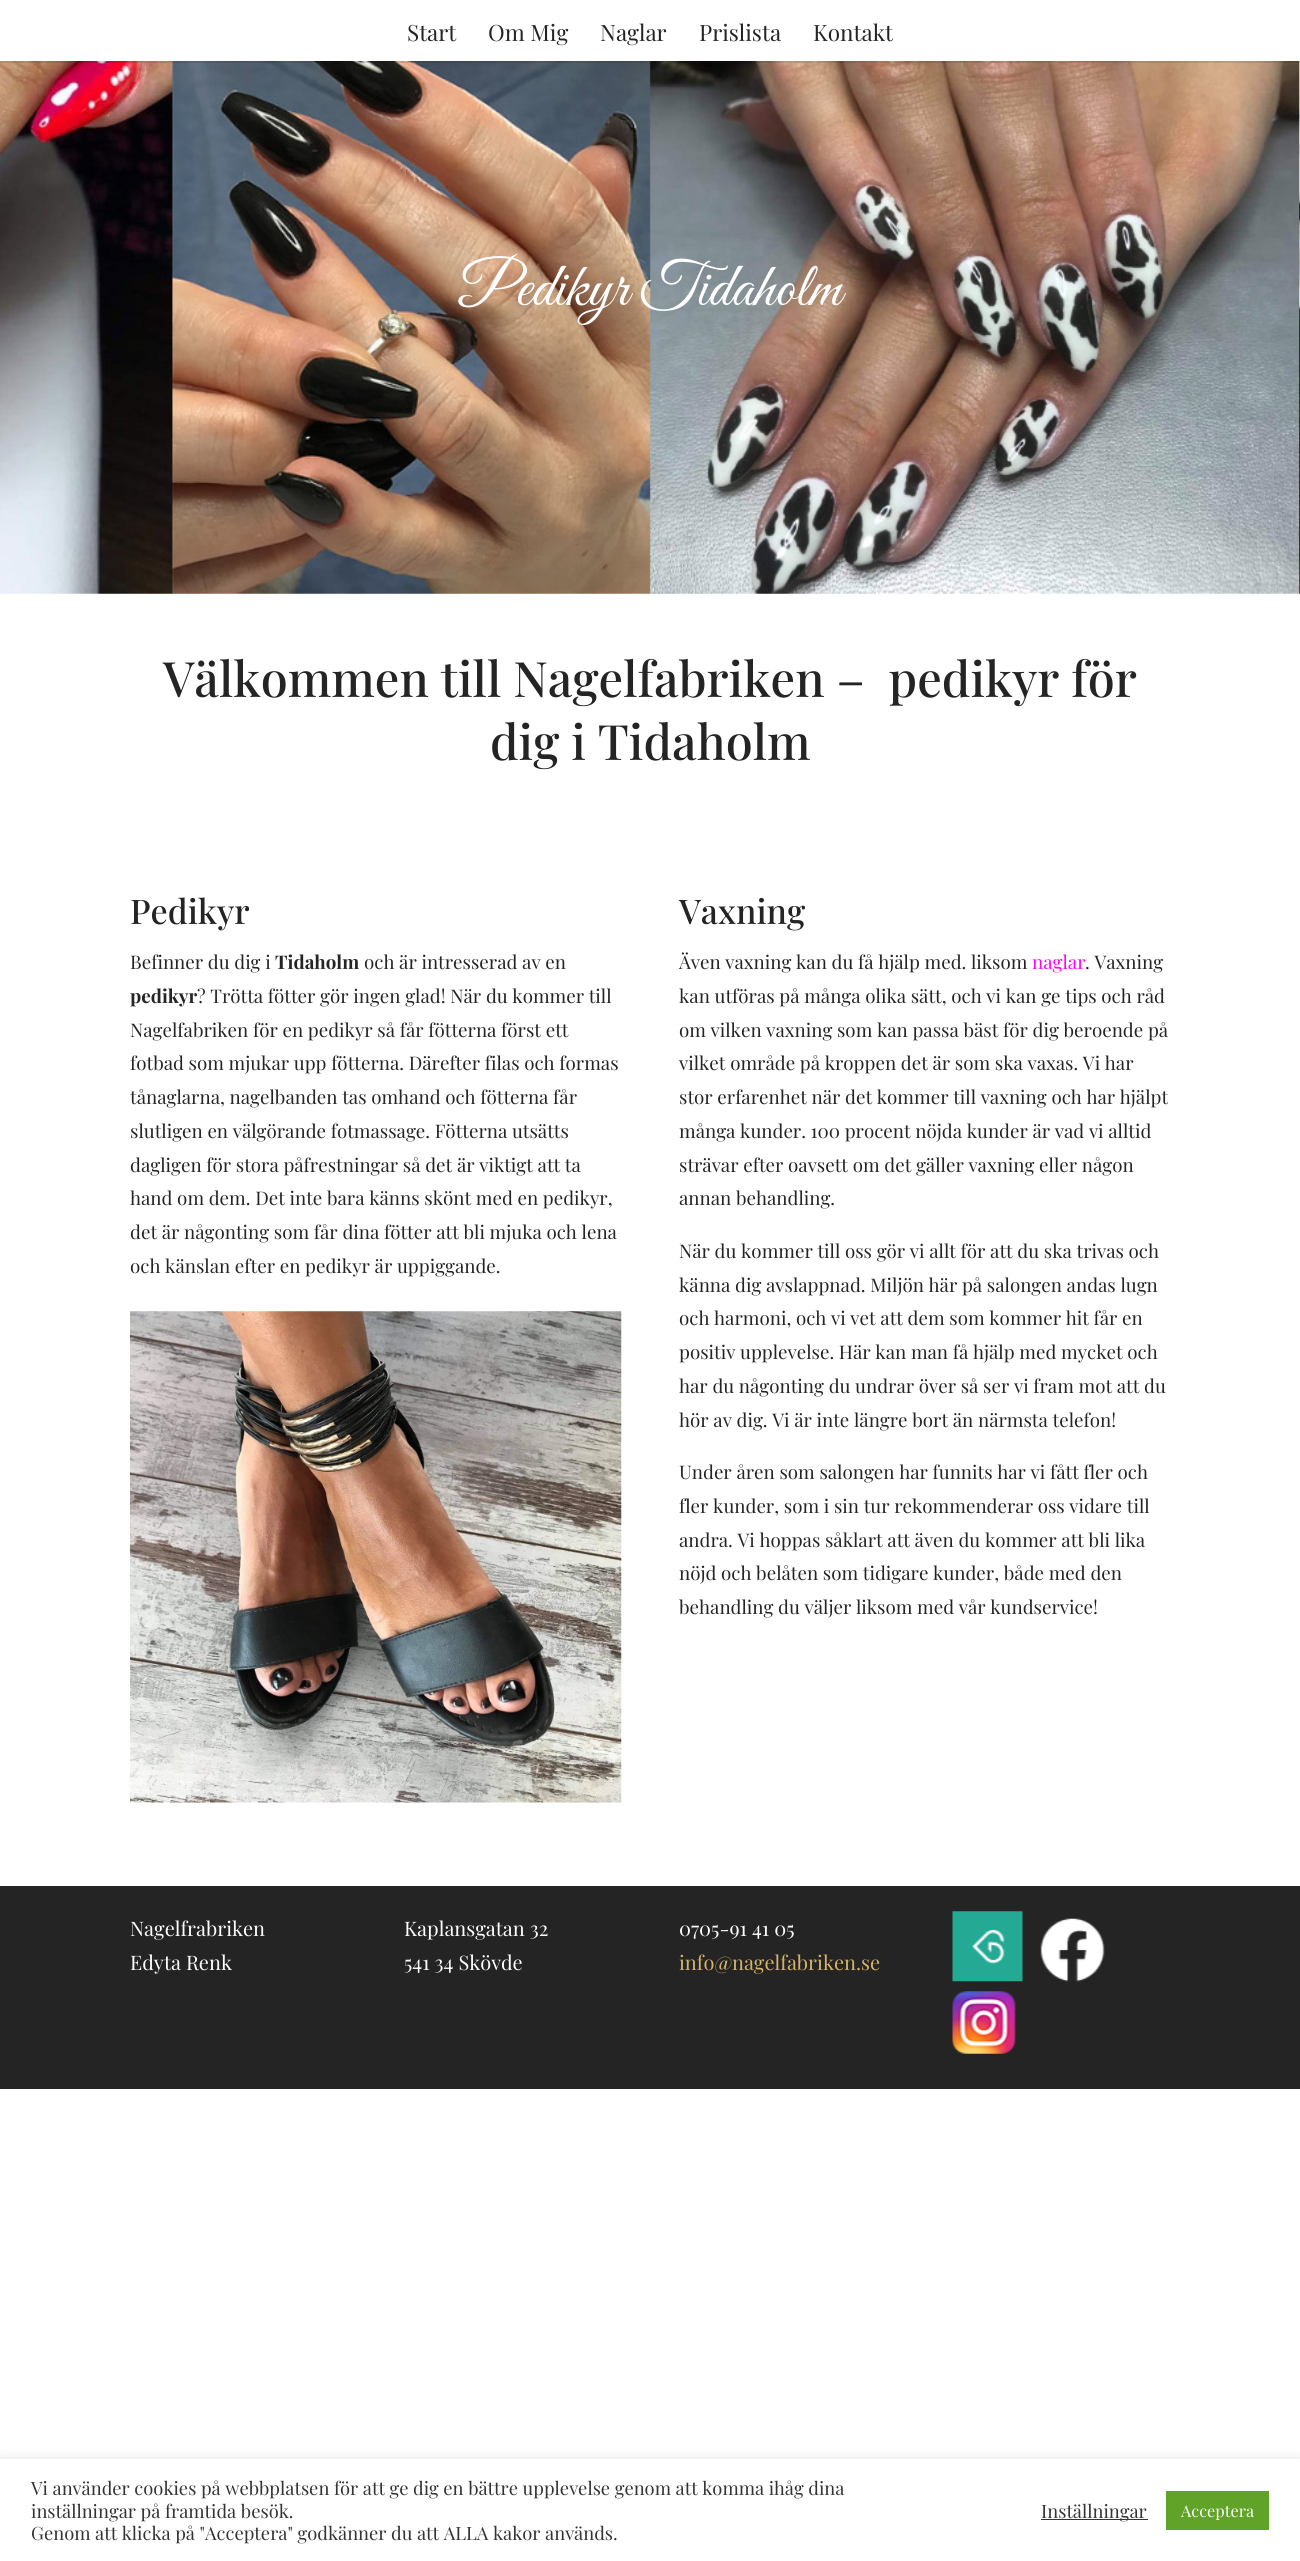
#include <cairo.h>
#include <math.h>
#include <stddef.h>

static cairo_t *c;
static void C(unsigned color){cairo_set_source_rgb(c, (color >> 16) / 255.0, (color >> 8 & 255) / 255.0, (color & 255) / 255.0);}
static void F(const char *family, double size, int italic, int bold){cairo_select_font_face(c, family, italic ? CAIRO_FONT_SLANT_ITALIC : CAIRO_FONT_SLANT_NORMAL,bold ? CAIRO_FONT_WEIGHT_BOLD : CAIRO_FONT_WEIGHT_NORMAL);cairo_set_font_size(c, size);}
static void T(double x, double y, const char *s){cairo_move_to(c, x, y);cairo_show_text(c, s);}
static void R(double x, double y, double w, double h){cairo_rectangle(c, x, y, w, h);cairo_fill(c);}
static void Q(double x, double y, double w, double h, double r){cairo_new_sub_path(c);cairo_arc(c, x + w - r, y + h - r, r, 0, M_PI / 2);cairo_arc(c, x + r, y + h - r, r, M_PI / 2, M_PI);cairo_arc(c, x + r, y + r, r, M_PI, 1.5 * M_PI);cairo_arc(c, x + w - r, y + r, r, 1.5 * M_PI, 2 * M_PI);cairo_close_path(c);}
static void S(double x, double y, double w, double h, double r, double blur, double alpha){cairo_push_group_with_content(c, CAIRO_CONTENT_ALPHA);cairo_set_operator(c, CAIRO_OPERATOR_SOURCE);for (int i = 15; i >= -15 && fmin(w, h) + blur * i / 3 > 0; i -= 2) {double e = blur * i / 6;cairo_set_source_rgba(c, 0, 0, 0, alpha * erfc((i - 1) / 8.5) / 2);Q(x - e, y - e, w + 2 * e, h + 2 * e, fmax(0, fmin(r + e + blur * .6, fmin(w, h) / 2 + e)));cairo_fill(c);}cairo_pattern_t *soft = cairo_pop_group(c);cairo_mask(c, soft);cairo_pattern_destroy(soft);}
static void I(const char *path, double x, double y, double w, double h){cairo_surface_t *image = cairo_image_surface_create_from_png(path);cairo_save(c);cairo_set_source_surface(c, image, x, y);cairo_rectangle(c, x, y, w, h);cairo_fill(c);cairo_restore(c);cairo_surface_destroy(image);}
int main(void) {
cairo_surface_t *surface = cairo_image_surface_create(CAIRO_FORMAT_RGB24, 1300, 2561);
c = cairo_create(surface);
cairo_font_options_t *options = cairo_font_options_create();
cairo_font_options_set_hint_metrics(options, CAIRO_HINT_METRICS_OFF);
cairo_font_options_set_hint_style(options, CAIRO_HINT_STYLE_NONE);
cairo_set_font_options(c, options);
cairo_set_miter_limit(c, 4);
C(0xffffff);
cairo_paint(c);
I("1.png",0,61,1300,533);
cairo_set_source_rgba(c,0,0,0,0.1);
R(0,61,1300,2);
F("Playfair Display",22.5,0,0);
C(0x242424);
T(407,41,"Start");
T(488,41,"Om Mig");
T(600,41,"Naglar");
T(699,41,"Prislista");
T(813,41,"Kontakt");
F("Great Vibes",62.5,0,0);
C(0xffffff);
T(458,305,"Pedikyr Tidaholm");
F("Playfair Display Medium",48.75,0,0);
C(0x242424);
T(163,697,"Välkommen till Nagelfabriken –  pedikyr för");
T(490,760,"dig i Tidaholm");
F("Playfair Display Medium",34,0,0);
T(130,924,"Pedikyr");
F("Playfair Display",18.75,0,0);
T(130,969,"Befinner du dig i");
F("Playfair Display",18.75,0,1);
T(275,969,"Tidaholm");
F("Playfair Display",18.75,0,0);
T(364,969,"och är intresserad av en");
F("Playfair Display",18.75,0,1);
T(130,1003,"pedikyr");
F("Playfair Display",18.75,0,0);
T(197,1003,"? Trötta fötter gör ingen glad! När du kommer till");
T(130,1037,"Nagelfabriken för en pedikyr så får fötterna först ett");
T(130,1070,"fotbad som mjukar upp fötterna. Därefter filas och formas");
T(130,1104,"tånaglarna, nagelbanden tas omhand och fötterna får");
T(130,1138,"slutligen en välgörande fotmassage. Fötterna utsätts");
T(130,1172,"dagligen för stora påfrestningar så det är viktigt att ta");
T(130,1205,"hand om dem. Det inte bara känns skönt med en pedikyr,");
T(130,1239,"det är någonting som får dina fötter att bli mjuka och lena");
T(130,1273,"och känslan efter en pedikyr är uppiggande.");
I("2.png",130,1311,492,492);
F("Playfair Display Medium",34,0,0);
T(679,924,"Vaxning");
F("Playfair Display",18.75,0,0);
T(679,969,"Även vaxning kan du få hjälp med. liksom");
C(0xff00ff);
T(1032,969,"naglar");
C(0x242424);
T(1085,969,". Vaxning");
T(679,1003,"kan utföras på många olika sätt, och vi kan ge tips och råd");
T(679,1037,"om vilken vaxning som kan passa bäst för dig beroende på");
T(679,1070,"vilket område på kroppen det är som ska vaxas. Vi har");
T(679,1104,"stor erfarenhet när det kommer till vaxning och har hjälpt");
T(679,1138,"många kunder. 100 procent nöjda kunder är vad vi alltid");
T(679,1172,"strävar efter oavsett om det gäller vaxning eller någon");
T(679,1205,"annan behandling.");
T(679,1258,"När du kommer till oss gör vi allt för att du ska trivas och");
T(679,1292,"känna dig avslappnad. Miljön här på salongen andas lugn");
T(679,1325,"och harmoni, och vi vet att dem som kommer hit får en");
T(679,1359,"positiv upplevelse. Här kan man få hjälp med mycket och");
T(679,1393,"har du någonting du undrar över så ser vi fram mot att du");
T(679,1427,"hör av dig. Vi är inte längre bort än närmsta telefon!");
T(679,1479,"Under åren som salongen har funnits har vi fått fler och");
T(679,1513,"fler kunder, som i sin tur rekommenderar oss vidare till");
T(679,1547,"andra. Vi hoppas såklart att även du kommer att bli lika");
T(679,1580,"nöjd och belåten som tidigare kunder, både med den");
T(679,1614,"behandling du väljer liksom med vår kundservice!");
R(0,1886,1300,203);
F("Playfair Display",20,0,0);
C(0xffffff);
T(130,1936,"Nagelfrabriken");
T(130,1970,"Edyta Renk");
T(404,1936,"Kaplansgatan 32");
T(404,1970,"541 34 Skövde");
T(679,1936,"0705-91 41 05");
C(0xd5b36a);
T(679,1970,"info@nagelfabriken.se");
I("3.png",952,1911,71,71);
I("4.png",1040,1918,65,64);
I("5.png",952,1991,64,63);
cairo_save(c);
cairo_rectangle(c,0,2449,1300,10);
cairo_clip(c);
C(0xacabab);
S(0,2458,1300,102,0,6,.3);
cairo_restore(c);
F("Playfair Display",18.35,0,0);
C(0x333333);
T(31,2495,"Vi använder cookies på webbplatsen för att ge dig en bättre upplevelse genom att komma ihåg dina");
T(31,2518,"inställningar på framtida besök.");
T(31,2540,"Genom att klicka på \"Acceptera\" godkänner du att ALLA kakor används.");
R(1041,2519,107,1);
T(1041,2518,"Inställningar");
C(0x61a229);
R(1166,2491,103,39);
F("Playfair Display",16.25,0,0);
C(0xffffff);
T(1181,2517,"Acceptera");
cairo_surface_write_to_png(surface, "o.png");
cairo_font_options_destroy(options);
cairo_destroy(c);
cairo_surface_destroy(surface);
return 0;
}
